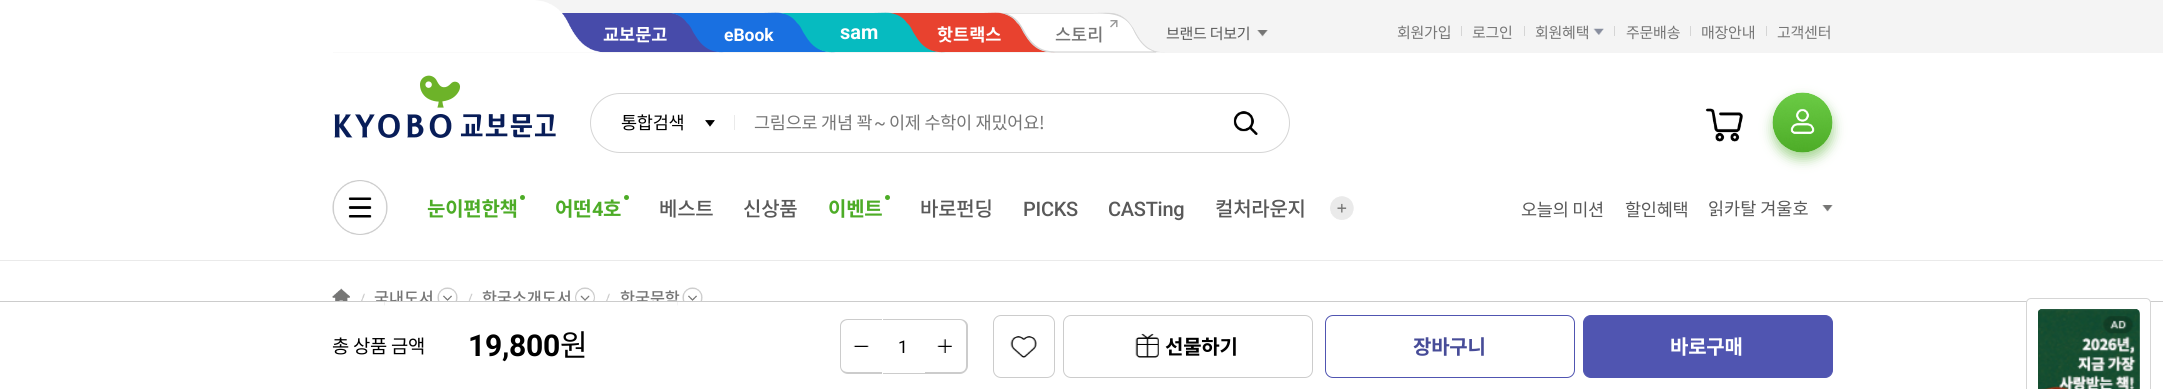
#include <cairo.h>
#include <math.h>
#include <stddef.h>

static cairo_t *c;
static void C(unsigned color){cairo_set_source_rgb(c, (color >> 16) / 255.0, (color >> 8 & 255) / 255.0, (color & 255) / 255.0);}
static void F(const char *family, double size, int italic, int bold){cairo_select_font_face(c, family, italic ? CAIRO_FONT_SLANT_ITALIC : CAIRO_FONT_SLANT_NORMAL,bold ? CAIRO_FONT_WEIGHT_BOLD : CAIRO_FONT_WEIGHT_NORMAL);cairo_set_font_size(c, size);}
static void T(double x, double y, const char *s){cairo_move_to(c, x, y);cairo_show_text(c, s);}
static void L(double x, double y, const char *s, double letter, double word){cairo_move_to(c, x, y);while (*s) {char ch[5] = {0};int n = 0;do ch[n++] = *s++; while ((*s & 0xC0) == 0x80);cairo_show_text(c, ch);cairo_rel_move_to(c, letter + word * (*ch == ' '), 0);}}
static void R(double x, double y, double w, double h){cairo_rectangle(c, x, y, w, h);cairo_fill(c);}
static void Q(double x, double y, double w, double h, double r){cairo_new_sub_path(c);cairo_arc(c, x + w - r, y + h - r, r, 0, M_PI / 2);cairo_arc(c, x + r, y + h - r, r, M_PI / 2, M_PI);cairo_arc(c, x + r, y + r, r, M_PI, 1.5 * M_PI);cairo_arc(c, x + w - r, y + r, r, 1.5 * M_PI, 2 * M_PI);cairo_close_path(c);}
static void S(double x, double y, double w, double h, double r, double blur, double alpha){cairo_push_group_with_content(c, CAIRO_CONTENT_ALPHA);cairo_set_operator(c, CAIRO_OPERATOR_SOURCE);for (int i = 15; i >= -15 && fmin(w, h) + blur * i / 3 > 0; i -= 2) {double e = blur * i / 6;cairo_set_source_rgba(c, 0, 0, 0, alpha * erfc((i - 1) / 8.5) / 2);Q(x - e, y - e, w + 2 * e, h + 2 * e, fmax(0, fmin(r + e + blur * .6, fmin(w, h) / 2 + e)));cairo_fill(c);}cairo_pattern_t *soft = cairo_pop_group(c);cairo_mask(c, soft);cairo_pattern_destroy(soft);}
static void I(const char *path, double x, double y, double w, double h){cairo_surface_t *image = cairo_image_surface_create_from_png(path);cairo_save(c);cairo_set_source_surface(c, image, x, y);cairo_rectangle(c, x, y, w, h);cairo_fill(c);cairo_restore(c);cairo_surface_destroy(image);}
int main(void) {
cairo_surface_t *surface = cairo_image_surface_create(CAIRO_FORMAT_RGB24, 2163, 389);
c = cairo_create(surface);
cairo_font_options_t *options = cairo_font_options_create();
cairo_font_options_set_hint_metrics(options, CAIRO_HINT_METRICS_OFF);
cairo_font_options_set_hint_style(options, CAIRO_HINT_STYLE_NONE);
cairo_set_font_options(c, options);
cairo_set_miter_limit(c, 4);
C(0xffffff);
cairo_paint(c);
C(0xeaeaea);
R(0,260,2163,1);
C(0xf4f4f4);
R(333,0,1830,53);
C(0x474baa);
cairo_new_path(c);
cairo_move_to(c,561,13);
cairo_line_to(c,672,13);
cairo_curve_to(c,678,14,688,18,693,29);
cairo_curve_to(c,703,48,712,52,726,52);
cairo_line_to(c,561,52);
cairo_close_path(c);
cairo_fill(c);
I("1.png",333,0,269,53);
F("Noto Sans KR",17.5,0,1);
C(0xffffff);
T(603,41,"교보문고");
C(0x1970e1);
cairo_new_path(c);
cairo_move_to(c,836,52);
cairo_curve_to(c,822,53,814,47,807,35);
cairo_curve_to(c,801,25,798,18,787,14);
cairo_curve_to(c,779,12,772,13,763,13);
cairo_line_to(c,670,13);
cairo_curve_to(c,677,14,683,17,687,23);
cairo_curve_to(c,691,26,692,31,695,35);
cairo_curve_to(c,702,47,711,53,724,52);
cairo_close_path(c);
cairo_fill(c);
F("Roboto",17.5,0,1);
C(0xffffff);
T(724,41,"eBook");
C(0x06bbc0);
cairo_new_path(c);
cairo_move_to(c,946,52);
cairo_curve_to(c,932,53,924,47,917,35);
cairo_curve_to(c,911,25,908,18,897,14);
cairo_curve_to(c,889,12,882,13,873,13);
cairo_line_to(c,780,13);
cairo_curve_to(c,787,14,793,17,797,23);
cairo_curve_to(c,801,26,802,31,805,35);
cairo_curve_to(c,812,47,821,53,834,52);
cairo_close_path(c);
cairo_fill(c);
F("Roboto",20,0,1);
C(0xffffff);
T(840,39,"sam");
C(0xe8422f);
cairo_new_path(c);
cairo_move_to(c,1056,52);
cairo_curve_to(c,1042,53,1034,47,1027,35);
cairo_curve_to(c,1021,25,1018,18,1007,14);
cairo_curve_to(c,999,12,992,13,983,13);
cairo_line_to(c,890,13);
cairo_curve_to(c,897,14,903,17,907,23);
cairo_curve_to(c,911,26,912,31,915,35);
cairo_curve_to(c,922,47,931,53,944,52);
cairo_close_path(c);
cairo_fill(c);
F("Noto Sans KR",17.5,0,1);
C(0xffffff);
T(937,41,"핫트랙스");
C(0xd5d5d5);
cairo_new_path(c);
cairo_move_to(c,1166,52);
cairo_curve_to(c,1152,53,1144,47,1137,35);
cairo_curve_to(c,1131,25,1128,18,1117,14);
cairo_curve_to(c,1109,12,1102,13,1093,13);
cairo_line_to(c,1000,13);
cairo_curve_to(c,1007,14,1013,17,1017,23);
cairo_curve_to(c,1021,26,1022,31,1025,35);
cairo_curve_to(c,1032,47,1041,53,1054,52);
cairo_close_path(c);
cairo_fill(c);
cairo_save(c);
cairo_rectangle(c,996,13,170,40);
cairo_clip(c);
C(0xffffff);
cairo_new_path(c);
cairo_move_to(c,1154,51);
cairo_line_to(c,1156,52);
cairo_line_to(c,1055,52);
cairo_curve_to(c,1042,52,1033,47,1026,35);
cairo_curve_to(c,1021,26,1018,19,1009,15);
cairo_line_to(c,1004,13);
cairo_line_to(c,1075,13);
cairo_curve_to(c,1086,13,1100,12,1111,14);
cairo_curve_to(c,1116,14,1122,16,1126,20);
cairo_curve_to(c,1130,23,1133,28,1135,33);
cairo_curve_to(c,1140,41,1145,48,1154,51);
cairo_close_path(c);
cairo_fill(c);
cairo_restore(c);
cairo_save(c);
cairo_rectangle(c,996,13,170,40);
cairo_clip(c);
cairo_new_path(c);
cairo_move_to(c,1165.5,52.5);
cairo_line_to(c,1054.5,52.5);
cairo_curve_to(c,1051,52.5,1048,52,1045,51.5);
cairo_curve_to(c,1042,51,1039,49.5,1036.5,48);
cairo_curve_to(c,1031,44.5,1026,38.5,1021.5,28.5);
cairo_curve_to(c,1018.5,23,1014,18,1008,15.5);
cairo_curve_to(c,1004,13.5,1000,12.5,995.5,12.5);
cairo_line_to(c,1106.5,12.5);
cairo_curve_to(c,1110.5,12.5,1114.5,13.5,1118.5,15);
cairo_curve_to(c,1121.5,16,1124,17.5,1126.5,20);
cairo_curve_to(c,1129.5,22.5,1131.5,25.5,1133.5,28.5);
cairo_curve_to(c,1138,38.5,1143,44.5,1148.5,48);
cairo_curve_to(c,1151,49.5,1153.5,51,1156.5,51.5);
cairo_curve_to(c,1159.5,52,1162.5,52.5,1165.5,52.5);
cairo_close_path(c);
cairo_clip(c);
cairo_new_path(c);
cairo_move_to(c,1148.5,48.5);
cairo_line_to(c,1156,52);
cairo_line_to(c,1055,52);
cairo_curve_to(c,1041.5,52,1033.5,46.5,1026,35);
cairo_curve_to(c,1021,26.5,1018.5,19.5,1008.5,15);
cairo_line_to(c,1004,13);
cairo_line_to(c,1089,13);
cairo_curve_to(c,1106.5,13,1124,11,1133.5,29);
cairo_curve_to(c,1137,36.5,1141.5,44,1148.5,48.5);
cairo_close_path(c);
cairo_set_line_width(c,1.2);
cairo_stroke(c);
cairo_restore(c);
I("2.png",1110,20,8,8);
F("Noto Sans KR Medium",17.5,0,0);
C(0x767676);
T(1055,41,"스토리");
F("Noto Sans KR",15,0,0);
C(0x595959);
L(1166,39,"브랜드 더보기",-.25,0);
I("3.png",1257,30,11,7);
C(0x767676);
L(1397,38,"회원가입",-.25,0);
C(0xd5d5d5);
R(1461,26,1,10);
C(0x767676);
L(1472,38,"로그인",-.25,0);
C(0xd5d5d5);
R(1524,26,1,10);
C(0x767676);
L(1535,38,"회원혜택",-.25,0);
I("4.png",1593,28,11,7);
C(0xd5d5d5);
R(1614,26,1,10);
C(0x767676);
L(1626,38,"주문배송",-.25,0);
C(0xd5d5d5);
R(1690,26,1,10);
C(0x767676);
L(1701,38,"매장안내",-.25,0);
C(0xd5d5d5);
R(1766,26,1,10);
C(0x767676);
L(1777,38,"고객센터",-.25,0);
I("5.png",334,75,222,63);
Q(590.5,93.5,699,59,29.5);
C(0xd5d5d5);
cairo_set_line_width(c,1);
cairo_stroke(c);
F("Noto Sans KR",17.5,0,0);
C(0x000000);
L(621,129,"통합검색",-.25,0);
I("6.png",705,120,10,7);
C(0xeaeaea);
R(734,115,1,15);
C(0x767676);
L(754,129,"그림으로 개념 꽉",-.25,0);
F("Roboto",17.5,0,0);
L(874,129,"~",-.25,0);
F("Noto Sans KR",17.5,0,0);
L(889,129,"이제 수학이 재밌어요!",-.25,0);
I("7.png",1233,111,25,24);
I("8.png",1705,108,38,34);
C(0x4dac27);
S(1773,99,60,60,30,6,.5);
I("9.png",1772,92,61,61);
I("10.png",332,180,56,55);
C(0x4dac27);
cairo_arc(c,522.5,197.5,2.5,0,2 * M_PI);
cairo_fill(c);
F("Noto Sans KR",20,0,1);
L(427,216,"눈이편한책",-.25,0);
cairo_new_path(c);
cairo_arc(c,626.5,197.5,2.5,0,2 * M_PI);
cairo_fill(c);
L(555,216,"어떤",-.25,0);
F("Roboto",20,0,1);
L(592,216,"4",-.25,0);
F("Noto Sans KR",20,0,1);
L(603,216,"호",-.25,0);
F("Noto Sans KR Medium",20,0,0);
C(0x595959);
L(659,216,"베스트",-.25,0);
L(743,216,"신상품",-.25,0);
C(0x4dac27);
cairo_new_path(c);
cairo_arc(c,887.5,197.5,2.5,0,2 * M_PI);
cairo_fill(c);
F("Noto Sans KR",20,0,1);
L(828,216,"이벤트",-.25,0);
F("Noto Sans KR Medium",20,0,0);
C(0x595959);
L(920,216,"바로펀딩",-.25,0);
F("Roboto Medium",20,0,0);
L(1023,216,"PICKS",-.25,0);
L(1108,216,"CASTing",-.25,0);
F("Noto Sans KR Medium",20,0,0);
L(1215,216,"컬처라운지",-.25,0);
I("11.png",1330,196,24,24);
F("Noto Sans KR",17.5,0,0);
L(1521,216,"오늘의 미션",-.25,0);
L(1625,216,"할인혜택",-.25,0);
T(1708,215,"읽카탈 겨울호");
I("12.png",1822,205,11,7);
I("13.png",332,288,18,13);
I("14.png",361,293,4,8);
F("Noto Sans KR Medium",16.25,0,0);
C(0x767676);
T(374,304,"국내도서");
I("15.png",437,287,21,14);
I("16.png",468,293,5,8);
T(482,304,"한국소개도서");
I("17.png",575,287,20,14);
I("14.png",606,293,4,8);
T(620,304,"한국문학");
I("15.png",682,287,21,14);
C(0xffffff);
R(385,302,292,4);
C(0xcccccc);
R(0,301,2163,1);
F("Noto Sans KR",18.75,0,0);
C(0x000000);
L(332,353,"총 상품 금액",-.25,0);
F("Roboto",30,0,1);
L(468,356,"19,800",-.25,0);
F("Noto Sans KR",30,0,0);
L(560,356,"원",-.25,0);
C(0xcccccc);
R(881,319,45,1);
R(881,373,45,1);
C(0xffffff);
cairo_new_path(c);
cairo_move_to(c,848,319);
cairo_line_to(c,883,319);
cairo_line_to(c,883,374);
cairo_line_to(c,848,374);
cairo_curve_to(c,843.5,374,840,370.5,840,366);
cairo_line_to(c,840,327);
cairo_curve_to(c,840,322.5,843.5,319,848,319);
cairo_close_path(c);
cairo_fill(c);
C(0xcccccc);
cairo_set_fill_rule(c,CAIRO_FILL_RULE_EVEN_ODD);
cairo_new_path(c);
cairo_move_to(c,848,319);
cairo_line_to(c,882,319);
cairo_line_to(c,882,374);
cairo_line_to(c,848,374);
cairo_curve_to(c,843,374,840,370,840,366);
cairo_line_to(c,840,326);
cairo_curve_to(c,840,322,843,319,848,319);
cairo_close_path(c);
cairo_move_to(c,848,320);
cairo_line_to(c,882,320);
cairo_line_to(c,882,372);
cairo_line_to(c,848,372);
cairo_curve_to(c,844,372,841,370,841,366);
cairo_line_to(c,841,326);
cairo_curve_to(c,841,323,844,320,848,320);
cairo_close_path(c);
cairo_fill(c);
I("18.png",853,345,16,2);
F("Roboto",17.5,0,0);
C(0x000000);
L(898,353,"1",-.25,0);
C(0xffffff);
cairo_new_path(c);
cairo_move_to(c,925,319);
cairo_line_to(c,960,319);
cairo_curve_to(c,964.5,319,968,322.5,968,327);
cairo_line_to(c,968,366);
cairo_curve_to(c,968,370.5,964.5,374,960,374);
cairo_line_to(c,925,374);
cairo_close_path(c);
cairo_fill(c);
C(0xcccccc);
cairo_new_path(c);
cairo_move_to(c,925,319);
cairo_line_to(c,960,319);
cairo_curve_to(c,964,319,968,322,968,326);
cairo_line_to(c,968,366);
cairo_curve_to(c,968,370,964,374,960,374);
cairo_line_to(c,925,374);
cairo_close_path(c);
cairo_move_to(c,925,320);
cairo_line_to(c,960,320);
cairo_curve_to(c,963,320,966,323,966,326);
cairo_line_to(c,966,366);
cairo_curve_to(c,966,370,963,372,960,372);
cairo_line_to(c,925,372);
cairo_close_path(c);
cairo_fill(c);
I("19.png",937,339,15,14);
Q(993.5,315.5,61,62,7.5);
cairo_stroke(c);
I("20.png",1010,336,27,22);
Q(1063.5,315.5,249,62,7.5);
cairo_stroke(c);
I("21.png",1135,333,24,25);
F("Noto Sans KR",20,0,1);
C(0x000000);
L(1165,354,"선물하기",-.25,0);
Q(1325.5,315.5,249,62,7.5);
C(0x5055b1);
cairo_stroke(c);
C(0x474c98);
L(1413,354,"장바구니",-.25,0);
C(0x5055b1);
Q(1583.5,315.5,249,62,7.5);
cairo_fill_preserve(c);
cairo_stroke(c);
C(0xffffff);
L(1670,354,"바로구매",-.25,0);
Q(2026.5,298.5,124,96,4.5);
cairo_fill_preserve(c);
C(0xd5d5d5);
cairo_stroke(c);
I("22.png",2038,309,102,80);
cairo_surface_write_to_png(surface, "o.png");
cairo_font_options_destroy(options);
cairo_destroy(c);
cairo_surface_destroy(surface);
return 0;
}
